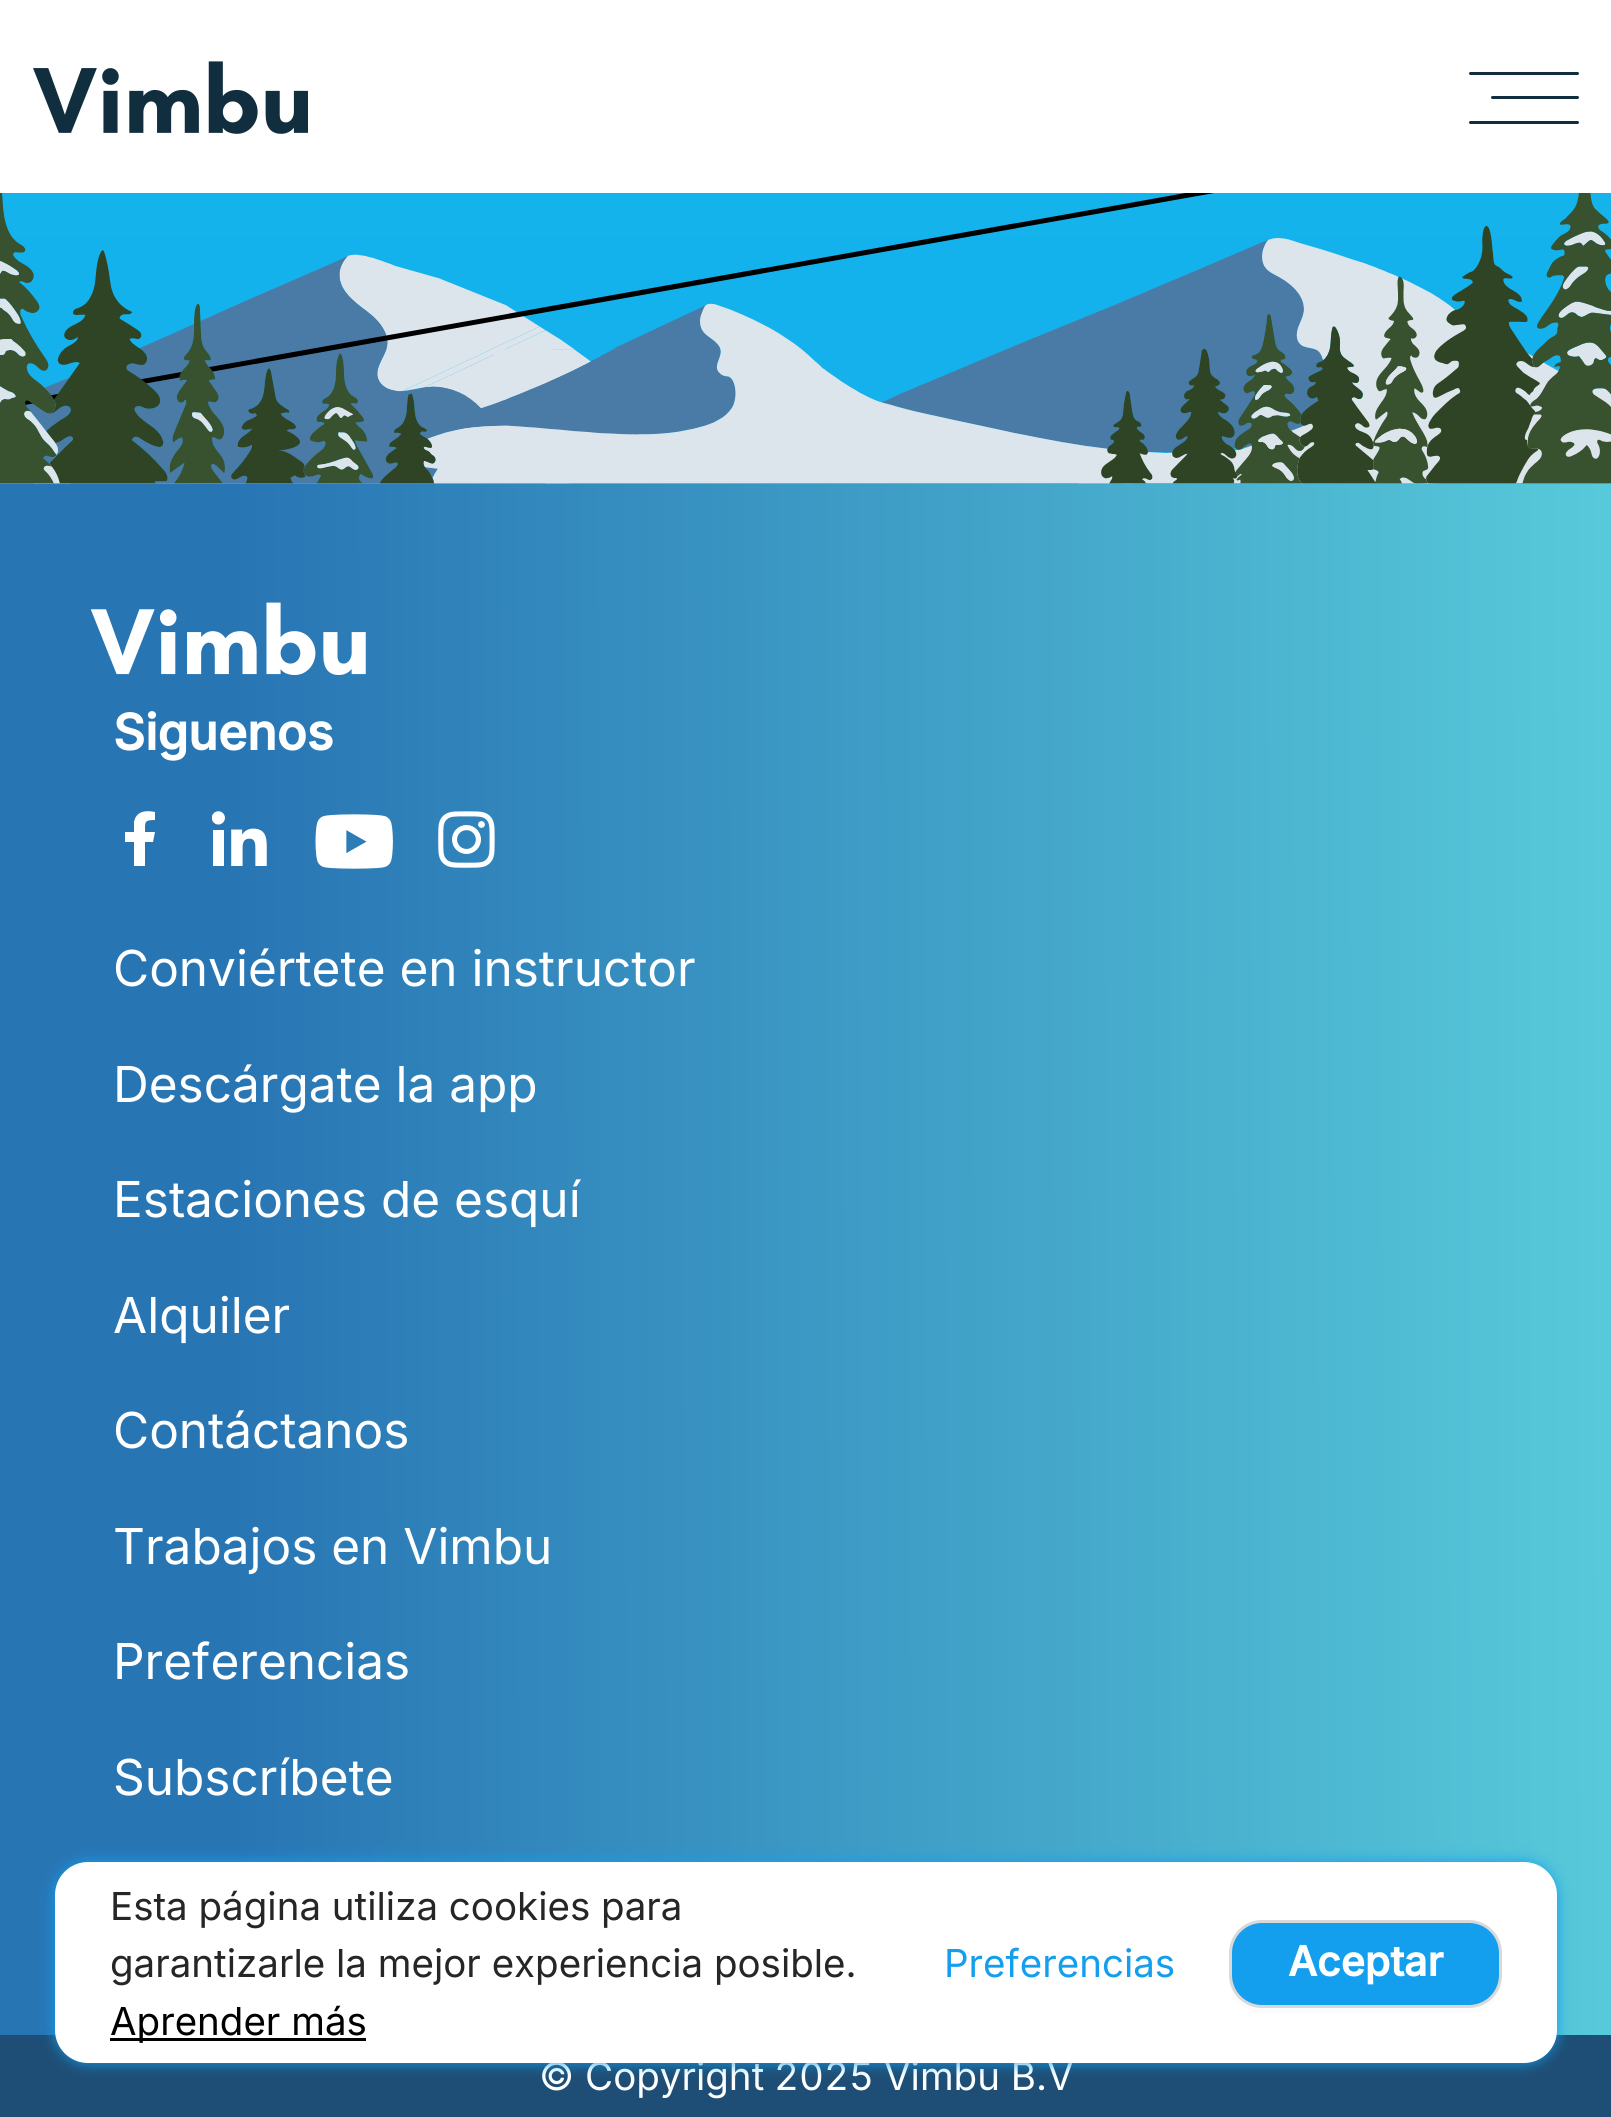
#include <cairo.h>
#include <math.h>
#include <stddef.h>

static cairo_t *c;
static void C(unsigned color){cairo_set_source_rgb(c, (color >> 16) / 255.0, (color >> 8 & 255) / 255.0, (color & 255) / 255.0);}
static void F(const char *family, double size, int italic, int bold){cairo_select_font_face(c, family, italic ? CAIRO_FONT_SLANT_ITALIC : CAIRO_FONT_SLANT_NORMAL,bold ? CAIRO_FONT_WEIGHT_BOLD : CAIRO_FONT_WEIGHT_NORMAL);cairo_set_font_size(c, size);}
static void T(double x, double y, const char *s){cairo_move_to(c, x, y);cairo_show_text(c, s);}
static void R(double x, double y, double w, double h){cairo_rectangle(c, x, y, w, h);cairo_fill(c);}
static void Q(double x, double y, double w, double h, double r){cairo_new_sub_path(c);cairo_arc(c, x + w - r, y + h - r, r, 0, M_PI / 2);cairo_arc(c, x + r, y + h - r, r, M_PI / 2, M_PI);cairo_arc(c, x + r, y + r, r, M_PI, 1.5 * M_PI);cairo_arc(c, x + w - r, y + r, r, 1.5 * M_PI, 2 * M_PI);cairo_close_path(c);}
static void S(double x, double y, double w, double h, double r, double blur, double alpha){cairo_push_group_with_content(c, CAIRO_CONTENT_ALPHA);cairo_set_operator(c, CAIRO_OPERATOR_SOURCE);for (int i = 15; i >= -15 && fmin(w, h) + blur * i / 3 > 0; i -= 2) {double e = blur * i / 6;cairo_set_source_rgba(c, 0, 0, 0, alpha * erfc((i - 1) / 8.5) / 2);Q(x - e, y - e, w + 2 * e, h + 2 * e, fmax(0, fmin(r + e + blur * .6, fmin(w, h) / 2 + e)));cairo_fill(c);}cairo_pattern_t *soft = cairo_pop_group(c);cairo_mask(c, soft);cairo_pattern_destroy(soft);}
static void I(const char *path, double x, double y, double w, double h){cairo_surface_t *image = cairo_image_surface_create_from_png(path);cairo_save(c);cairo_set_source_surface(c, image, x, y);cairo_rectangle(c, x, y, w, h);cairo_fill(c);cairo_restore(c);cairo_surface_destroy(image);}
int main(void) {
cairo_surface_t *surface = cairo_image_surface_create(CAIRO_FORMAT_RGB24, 1611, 2117);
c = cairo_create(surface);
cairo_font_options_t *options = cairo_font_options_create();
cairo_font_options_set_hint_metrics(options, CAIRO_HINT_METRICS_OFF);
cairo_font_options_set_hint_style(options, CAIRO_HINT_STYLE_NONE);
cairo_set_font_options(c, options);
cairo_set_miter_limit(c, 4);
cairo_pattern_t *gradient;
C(0xffffff);
cairo_paint(c);
gradient = cairo_pattern_create_linear(806,-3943,806,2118);
cairo_pattern_add_color_stop_rgba(gradient,0,0.02,0.898,0.898,1);
cairo_pattern_add_color_stop_rgba(gradient,.93,0.098,0.631,0.933,1);
cairo_set_source(c,gradient);
cairo_pattern_destroy(gradient);
R(0,193,1611,291);
I("1.png",33,61,275,73);
C(0x112e3f);
Q(1469,72,110,3,1.5);
cairo_fill(c);
Q(1491,96,88,3,1.5);
cairo_fill(c);
Q(1469,121,110,3,1.5);
cairo_fill(c);
I("2.png",0,193,1611,291);
gradient = cairo_pattern_create_linear(-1.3,1302,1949,1299);
cairo_pattern_add_color_stop_rgba(gradient,.12,0.157,0.459,0.706,1);
cairo_pattern_add_color_stop_rgba(gradient,1,0.388,0.871,0.89,1);
cairo_set_source(c,gradient);
cairo_pattern_destroy(gradient);
R(0,484,1611,1551);
I("3.png",91,602,275,73);
F("Inter",49.5,0,1);
C(0xffffff);
T(113,750,"Siguenos");
cairo_new_path(c);
cairo_move_to(c,153,842);
cairo_line_to(c,155,832);
cairo_line_to(c,145,832);
cairo_curve_to(c,145,822,144,820,155,820);
cairo_line_to(c,155,812);
cairo_curve_to(c,146,810,136,811,134,822);
cairo_line_to(c,134,832);
cairo_line_to(c,125,832);
cairo_line_to(c,125,842);
cairo_line_to(c,134,842);
cairo_line_to(c,134,866);
cairo_line_to(c,145,866);
cairo_line_to(c,145,842);
cairo_close_path(c);
cairo_fill(c);
I("4.png",212,811,55,55);
I("5.png",315,814,78,55);
I("6.png",438,811,57,57);
F("Inter",49.5,0,0);
T(113,986,"Conviértete en instructor");
T(113,1102,"Descárgate la app");
T(113,1217,"Estaciones de esquí");
T(113,1333,"Alquiler");
T(113,1448,"Contáctanos");
T(113,1564,"Trabajos en Vimbu");
T(113,1679,"Preferencias");
T(113,1795,"Subscríbete");
C(0x1e4e75);
R(0,2035,1611,82);
F("Inter",38.5,0,0);
C(0xffffff);
T(539,2090,"© Copyright");
F("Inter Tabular",38.5,0,0);
T(774,2090,"2025");
F("Inter",38.5,0,0);
T(884,2090,"Vimbu B.V");
C(0x139eee);
S(55,1862,1502,201,33,7,1);
C(0xffffff);
Q(55,1862,1502,201,33);
cairo_fill(c);
C(0x262626);
T(110,1920,"Esta página utiliza cookies para");
T(110,1977,"garantizarle la mejor experiencia posible.");
C(0x000000);
R(110,2038,256,3);
T(110,2035,"Aprender más");
C(0x139eee);
T(944,1977,"Preferencias");
C(0xfbfbfb);
cairo_new_path(c);
cairo_move_to(c,1229,1954);
cairo_line_to(c,1229,1980);
cairo_curve_to(c,1229,1998,1244,2013,1262,2013);
cairo_line_to(c,1469,2013);
cairo_curve_to(c,1487,2013,1502,1998,1502,1980);
cairo_line_to(c,1502,1958);
cairo_line_to(c,1501,1952);
cairo_line_to(c,1502,1974);
cairo_curve_to(c,1502,1993,1487,2008,1468,2008);
cairo_line_to(c,1262,2008);
cairo_curve_to(c,1244,2008,1229,1993,1229,1974);
cairo_close_path(c);
cairo_fill(c);
C(0x139eee);
Q(1230.5,1921.5,270,85,31.5);
cairo_fill_preserve(c);
C(0xd9d9d9);
cairo_set_line_width(c,3);
cairo_stroke(c);
F("Inter",41,0,1);
C(0xffffff);
T(1288,1976,"Aceptar");
cairo_surface_write_to_png(surface, "o.png");
cairo_font_options_destroy(options);
cairo_destroy(c);
cairo_surface_destroy(surface);
return 0;
}
